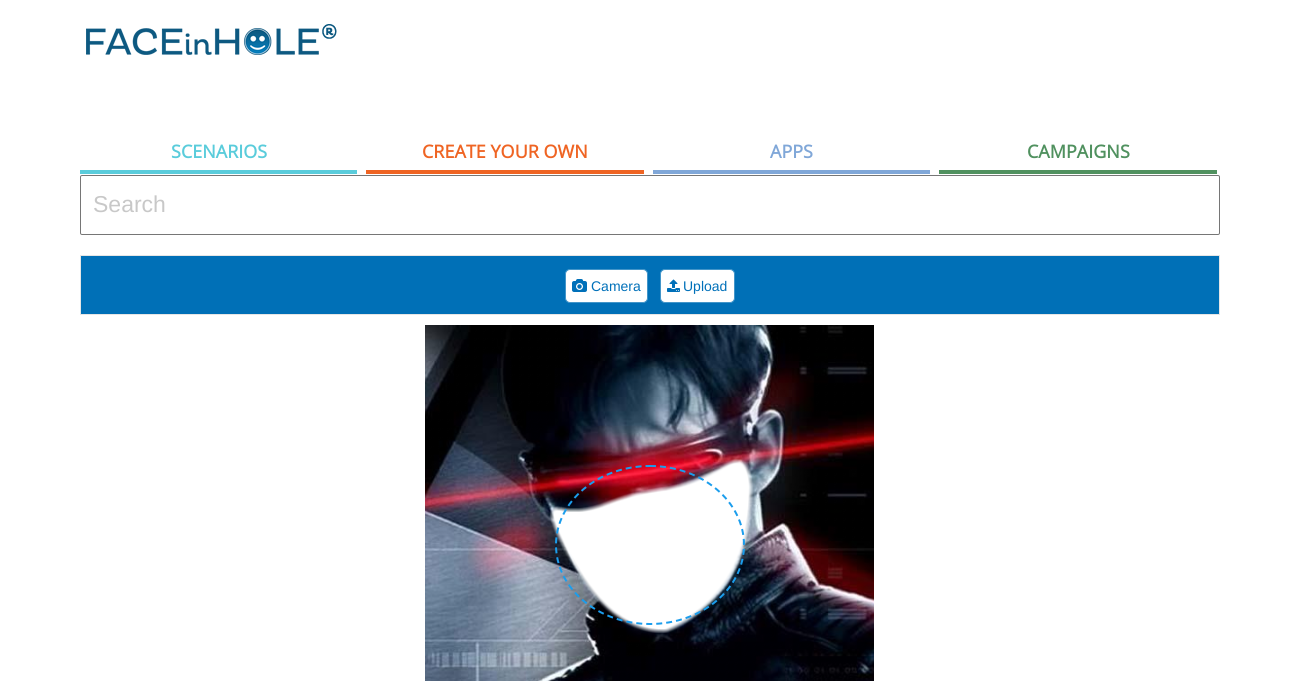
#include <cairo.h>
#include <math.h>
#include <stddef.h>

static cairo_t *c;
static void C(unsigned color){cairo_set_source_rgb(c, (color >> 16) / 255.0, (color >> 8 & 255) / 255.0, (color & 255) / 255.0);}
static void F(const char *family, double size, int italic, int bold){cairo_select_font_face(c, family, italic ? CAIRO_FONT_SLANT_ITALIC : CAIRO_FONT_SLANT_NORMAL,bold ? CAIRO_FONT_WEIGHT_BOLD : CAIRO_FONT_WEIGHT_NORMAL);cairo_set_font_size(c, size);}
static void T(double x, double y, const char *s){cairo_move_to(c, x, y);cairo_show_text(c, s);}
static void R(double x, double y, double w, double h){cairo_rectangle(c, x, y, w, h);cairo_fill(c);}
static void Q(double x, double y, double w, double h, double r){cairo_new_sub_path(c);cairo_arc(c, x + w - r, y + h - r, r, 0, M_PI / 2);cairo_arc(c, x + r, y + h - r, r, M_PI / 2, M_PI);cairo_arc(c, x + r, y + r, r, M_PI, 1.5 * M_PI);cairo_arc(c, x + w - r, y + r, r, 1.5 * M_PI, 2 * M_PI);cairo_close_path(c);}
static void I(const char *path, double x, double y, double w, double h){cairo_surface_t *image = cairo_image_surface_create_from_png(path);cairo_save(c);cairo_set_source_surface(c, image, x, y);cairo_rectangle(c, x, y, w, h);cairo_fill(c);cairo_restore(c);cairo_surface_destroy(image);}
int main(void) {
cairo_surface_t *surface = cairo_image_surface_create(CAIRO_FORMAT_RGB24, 1300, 681);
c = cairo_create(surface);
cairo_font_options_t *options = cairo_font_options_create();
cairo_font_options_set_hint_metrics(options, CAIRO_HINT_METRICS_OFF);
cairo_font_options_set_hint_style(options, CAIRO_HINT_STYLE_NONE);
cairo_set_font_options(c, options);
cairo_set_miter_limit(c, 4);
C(0xffffff);
cairo_paint(c);
I("1.png",86,24,251,31);
C(0x5accdb);
R(80,170,277,4);
F("Open Sans",18,0,1);
T(171,158,"SCENARIOS");
C(0xef6423);
R(366,170,278,4);
T(422,158,"CREATE YOUR OWN");
C(0x80a7d8);
R(653,170,277,4);
T(770,158,"APPS");
C(0x50915f);
R(939,170,278,4);
T(1027,158,"CAMPAIGNS");
Q(80.5,175.5,1139,59,1.5);
C(0x767676);
cairo_set_line_width(c,1);
cairo_stroke(c);
F("Liberation Sans",23,0,0);
C(0xc8c8c8);
T(93,212,"Search");
C(0x0070b7);
cairo_rectangle(c,80.5,255.5,1139,59);
cairo_fill_preserve(c);
C(0xe6e6e6);
cairo_stroke(c);
C(0xffffff);
Q(565.5,269.5,82,33,4.5);
cairo_fill_preserve(c);
C(0x4295c9);
cairo_stroke(c);
I("2.png",572,279,15,13);
F("Liberation Sans",14,0,0);
C(0x0070b9);
T(591,291,"Camera");
C(0xffffff);
Q(660.5,269.5,74,33,4.5);
cairo_fill_preserve(c);
C(0x4295c9);
cairo_stroke(c);
I("3.png",667,279,13,13);
C(0x0070b9);
T(683,291,"Upload");
I("4.png",425,325,449,356);
cairo_new_path(c);
cairo_move_to(c,650,466);
cairo_curve_to(c,702,466,744,501.5,744,545);
cairo_curve_to(c,744,588.5,702,624,650,624);
cairo_curve_to(c,598,624,556,588.5,556,545);
cairo_curve_to(c,556,501.5,598,466,650,466);
cairo_close_path(c);
C(0x1b9dec);
cairo_set_line_width(c,2);
cairo_set_dash(c,(double[]){6,4},2,0);
cairo_stroke(c);
cairo_surface_write_to_png(surface, "o.png");
cairo_font_options_destroy(options);
cairo_destroy(c);
cairo_surface_destroy(surface);
return 0;
}
